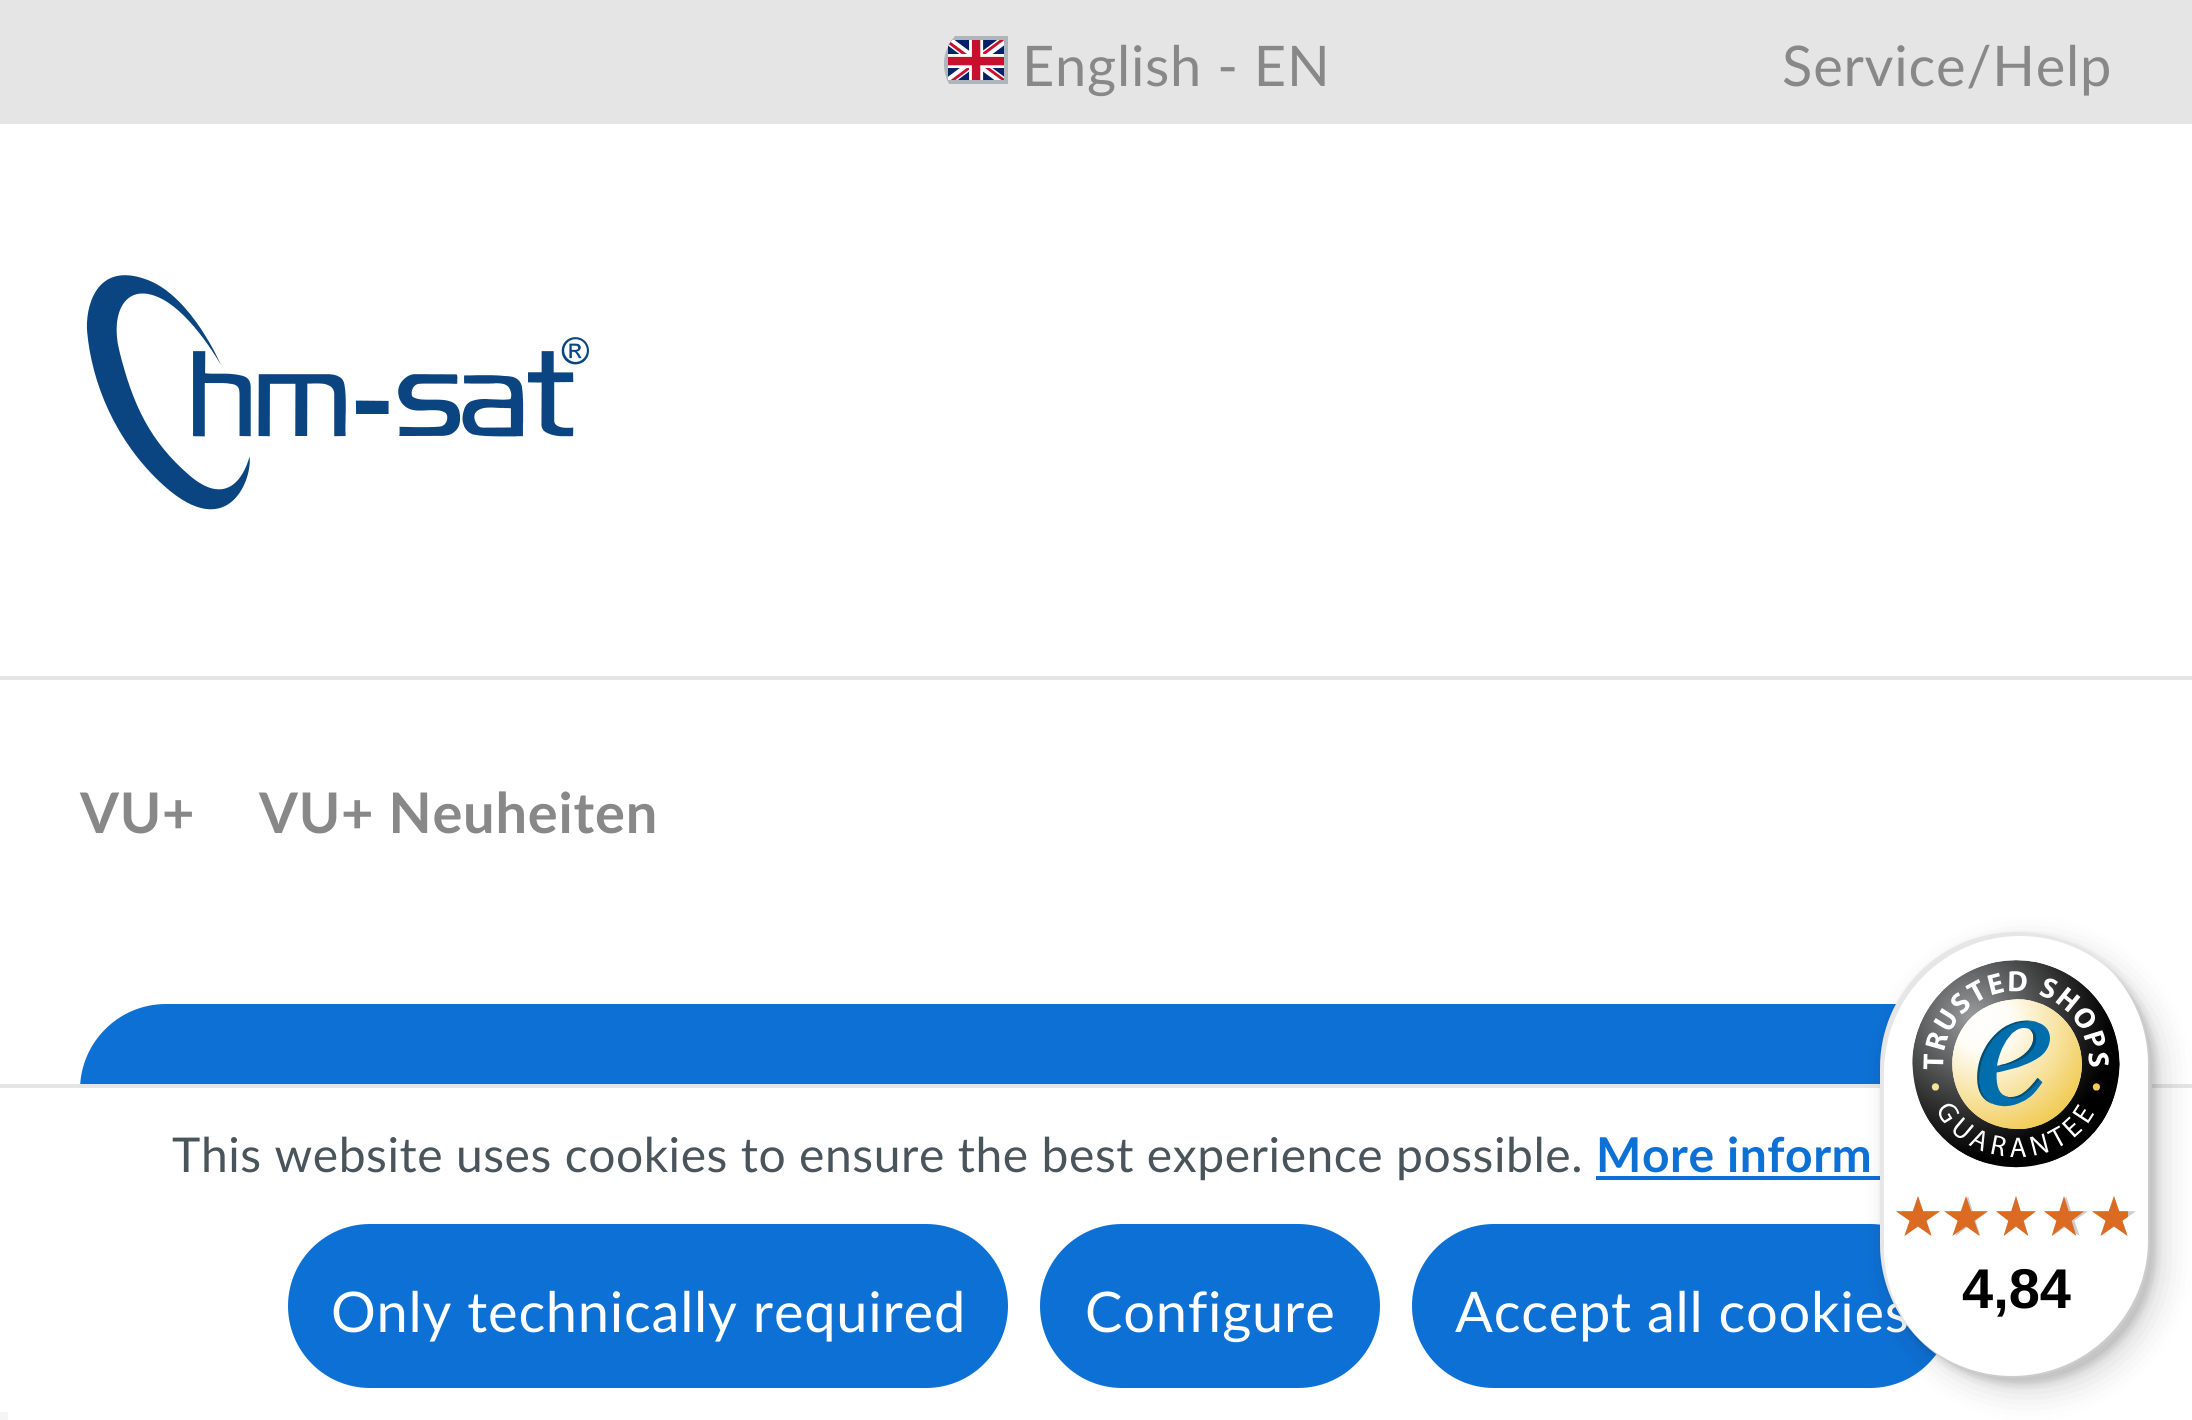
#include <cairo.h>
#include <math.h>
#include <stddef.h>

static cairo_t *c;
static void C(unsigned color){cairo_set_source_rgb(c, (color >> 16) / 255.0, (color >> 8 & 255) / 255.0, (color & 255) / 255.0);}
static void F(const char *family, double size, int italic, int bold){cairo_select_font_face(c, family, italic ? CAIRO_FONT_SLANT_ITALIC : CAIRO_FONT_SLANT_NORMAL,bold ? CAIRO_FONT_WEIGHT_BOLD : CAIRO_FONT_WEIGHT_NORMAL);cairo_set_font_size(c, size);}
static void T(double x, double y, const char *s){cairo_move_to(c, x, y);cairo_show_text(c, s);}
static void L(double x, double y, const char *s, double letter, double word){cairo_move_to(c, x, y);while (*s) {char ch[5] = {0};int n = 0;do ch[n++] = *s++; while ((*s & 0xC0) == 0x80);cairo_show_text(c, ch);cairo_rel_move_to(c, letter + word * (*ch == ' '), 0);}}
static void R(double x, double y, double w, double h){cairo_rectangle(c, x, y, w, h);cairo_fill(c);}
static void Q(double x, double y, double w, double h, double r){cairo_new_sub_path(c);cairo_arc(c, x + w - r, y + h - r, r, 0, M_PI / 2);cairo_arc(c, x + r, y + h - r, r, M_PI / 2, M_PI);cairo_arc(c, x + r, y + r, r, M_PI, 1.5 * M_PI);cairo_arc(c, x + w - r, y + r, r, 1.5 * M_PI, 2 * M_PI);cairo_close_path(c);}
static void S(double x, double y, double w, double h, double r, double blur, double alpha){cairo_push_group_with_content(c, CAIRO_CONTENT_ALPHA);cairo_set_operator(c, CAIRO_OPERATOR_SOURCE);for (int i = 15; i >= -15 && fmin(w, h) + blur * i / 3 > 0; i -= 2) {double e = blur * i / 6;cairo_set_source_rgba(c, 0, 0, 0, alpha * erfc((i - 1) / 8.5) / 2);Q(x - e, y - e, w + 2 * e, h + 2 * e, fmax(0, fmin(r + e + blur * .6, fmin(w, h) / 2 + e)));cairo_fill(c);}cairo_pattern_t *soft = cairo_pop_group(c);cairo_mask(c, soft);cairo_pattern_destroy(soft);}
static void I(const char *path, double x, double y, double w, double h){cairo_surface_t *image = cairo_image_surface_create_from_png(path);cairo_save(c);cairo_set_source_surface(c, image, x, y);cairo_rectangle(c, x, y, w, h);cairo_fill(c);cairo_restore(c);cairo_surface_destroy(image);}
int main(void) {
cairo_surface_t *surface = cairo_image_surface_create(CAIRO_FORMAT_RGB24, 2192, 1420);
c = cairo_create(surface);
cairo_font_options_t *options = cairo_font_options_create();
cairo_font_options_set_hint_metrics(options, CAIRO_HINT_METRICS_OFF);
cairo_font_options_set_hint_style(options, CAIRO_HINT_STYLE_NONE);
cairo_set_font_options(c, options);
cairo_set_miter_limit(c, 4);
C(0xffffff);
cairo_paint(c);
C(0xe5e5e5);
R(0,0,2192,124);
I("1.png",948,40,56,42);
C(0xadb5bd);
cairo_new_path(c);
cairo_move_to(c,949,84);
cairo_curve_to(c,943,73,942,58,948,47);
cairo_line_to(c,948,80);
cairo_line_to(c,1004,80);
cairo_line_to(c,1004,40);
cairo_line_to(c,952,40);
cairo_line_to(c,955,36);
cairo_line_to(c,1008,36);
cairo_line_to(c,1008,84);
cairo_close_path(c);
cairo_fill(c);
F("Lato",56,0,0);
C(0x888888);
L(1022,86,"English - EN",.75,0);
L(1782,86,"Service/Help",.75,0);
I("2.png",86,275,503,235);
C(0xe5e5e5);
R(0,676,2192,4);
F("Lato",56,0,1);
C(0x888888);
L(80,833,"VU+",.75,0);
L(259,833,"VU+ Neuheiten",.75,0);
C(0x0d70d4);
Q(82,1006,2028,168,84);
cairo_fill_preserve(c);
cairo_set_line_width(c,4);
cairo_stroke(c);
C(0xffffff);
R(80,1088,2032,88);
C(0xe5e5e5);
R(0,1084,2192,4);
F("Lato",48,0,0);
C(0x4a545b);
L(172,1172,"This website uses cookies to ensure the best experience possible.",.55,0);
F("Lato",48,0,1);
C(0x0d70d4);
L(1596,1172,"More inform",.55,0);
R(1596,1176,284,4);
Q(290,1226,716,160,80);
cairo_fill_preserve(c);
cairo_stroke(c);
F("Lato",56,0,0);
C(0xffffff);
L(331,1332,"Only technically required",.75,0);
C(0x0d70d4);
Q(1042,1226,336,160,80);
cairo_fill_preserve(c);
cairo_stroke(c);
C(0xffffff);
L(1085,1332,"Configure",.75,0);
C(0x0d70d4);
Q(1414,1226,536,160,80);
cairo_fill_preserve(c);
cairo_stroke(c);
C(0xffffff);
L(1455,1332,"Accept all cookies",.75,0);
C(0x000000);
S(1892,944,272,448,136,16,.15);
S(1884,936,272,448,136,4,.15);
C(0xffffff);
Q(1880,932,272,448,136);
cairo_fill(c);
cairo_set_source_rgba(c,0,0,0,0.1);
cairo_new_path(c);
cairo_move_to(c,2020,936);
cairo_curve_to(c,2057,936,2091,951,2115,975);
cairo_curve_to(c,2090,948,2055,932,2016,932);
cairo_curve_to(c,1941,932,1880,993,1880,1068);
cairo_line_to(c,1880,1244);
cairo_curve_to(c,1880,1283,1896,1318,1923,1343);
cairo_curve_to(c,1899,1319,1884,1285,1884,1248);
cairo_line_to(c,1884,1072);
cairo_curve_to(c,1884,997,1945,936,2020,936);
cairo_close_path(c);
cairo_fill(c);
cairo_set_source_rgba(c,0,0,0,0.2);
cairo_new_path(c);
cairo_move_to(c,1917,1337);
cairo_curve_to(c,1942,1364,1977,1380,2016,1380);
cairo_curve_to(c,2091,1380,2152,1319,2152,1244);
cairo_line_to(c,2152,1068);
cairo_curve_to(c,2152,1029,2136,994,2109,969);
cairo_curve_to(c,2133,993,2148,1027,2148,1064);
cairo_line_to(c,2148,1240);
cairo_curve_to(c,2148,1315,2087,1376,2012,1376);
cairo_curve_to(c,1975,1376,1941,1361,1917,1337);
cairo_close_path(c);
cairo_fill(c);
cairo_set_source_rgba(c,0.196,0.196,0.196,0.2);
cairo_new_path(c);
cairo_move_to(c,1926,1346);
cairo_curve_to(c,1950,1367,1982,1380,2016,1380);
cairo_curve_to(c,2091,1380,2152,1319,2152,1244);
cairo_line_to(c,2152,1068);
cairo_curve_to(c,2152,1034,2139,1002,2118,978);
cairo_curve_to(c,2138,1002,2150,1032,2150,1066);
cairo_line_to(c,2150,1242);
cairo_curve_to(c,2150,1317,2089,1378,2014,1378);
cairo_curve_to(c,1980,1378,1950,1366,1926,1346);
cairo_close_path(c);
cairo_fill(c);
cairo_set_source_rgba(c,1,1,1,0.3);
cairo_new_path(c);
cairo_move_to(c,1917,1337);
cairo_curve_to(c,1942,1364,1977,1380,2016,1380);
cairo_curve_to(c,2091,1380,2152,1319,2152,1244);
cairo_line_to(c,2152,1068);
cairo_curve_to(c,2152,1029,2136,994,2109,969);
cairo_curve_to(c,2134,994,2150,1028,2150,1066);
cairo_line_to(c,2150,1242);
cairo_curve_to(c,2150,1317,2089,1378,2014,1378);
cairo_curve_to(c,1976,1378,1942,1362,1917,1337);
cairo_close_path(c);
cairo_fill(c);
I("3.png",1912,960,208,208);
I("4.png",1896,1196,44,40);
I("5.png",1948,1196,40,40);
I("6.png",1996,1196,40,40);
I("7.png",2044,1196,44,40);
I("7.png",2092,1196,44,40);
I("8.png",1896,1196,44,40);
I("9.png",1944,1196,44,40);
I("10.png",1996,1196,40,40);
I("11.png",2044,1196,40,40);
I("12.png",2092,1196,36,40);
F("Liberation Sans",56,0,1);
C(0x000000);
T(1962,1308,"4,84");
C(0xf5f5f5);
R(0,1412,8,8);
cairo_surface_write_to_png(surface, "o.png");
cairo_font_options_destroy(options);
cairo_destroy(c);
cairo_surface_destroy(surface);
return 0;
}
